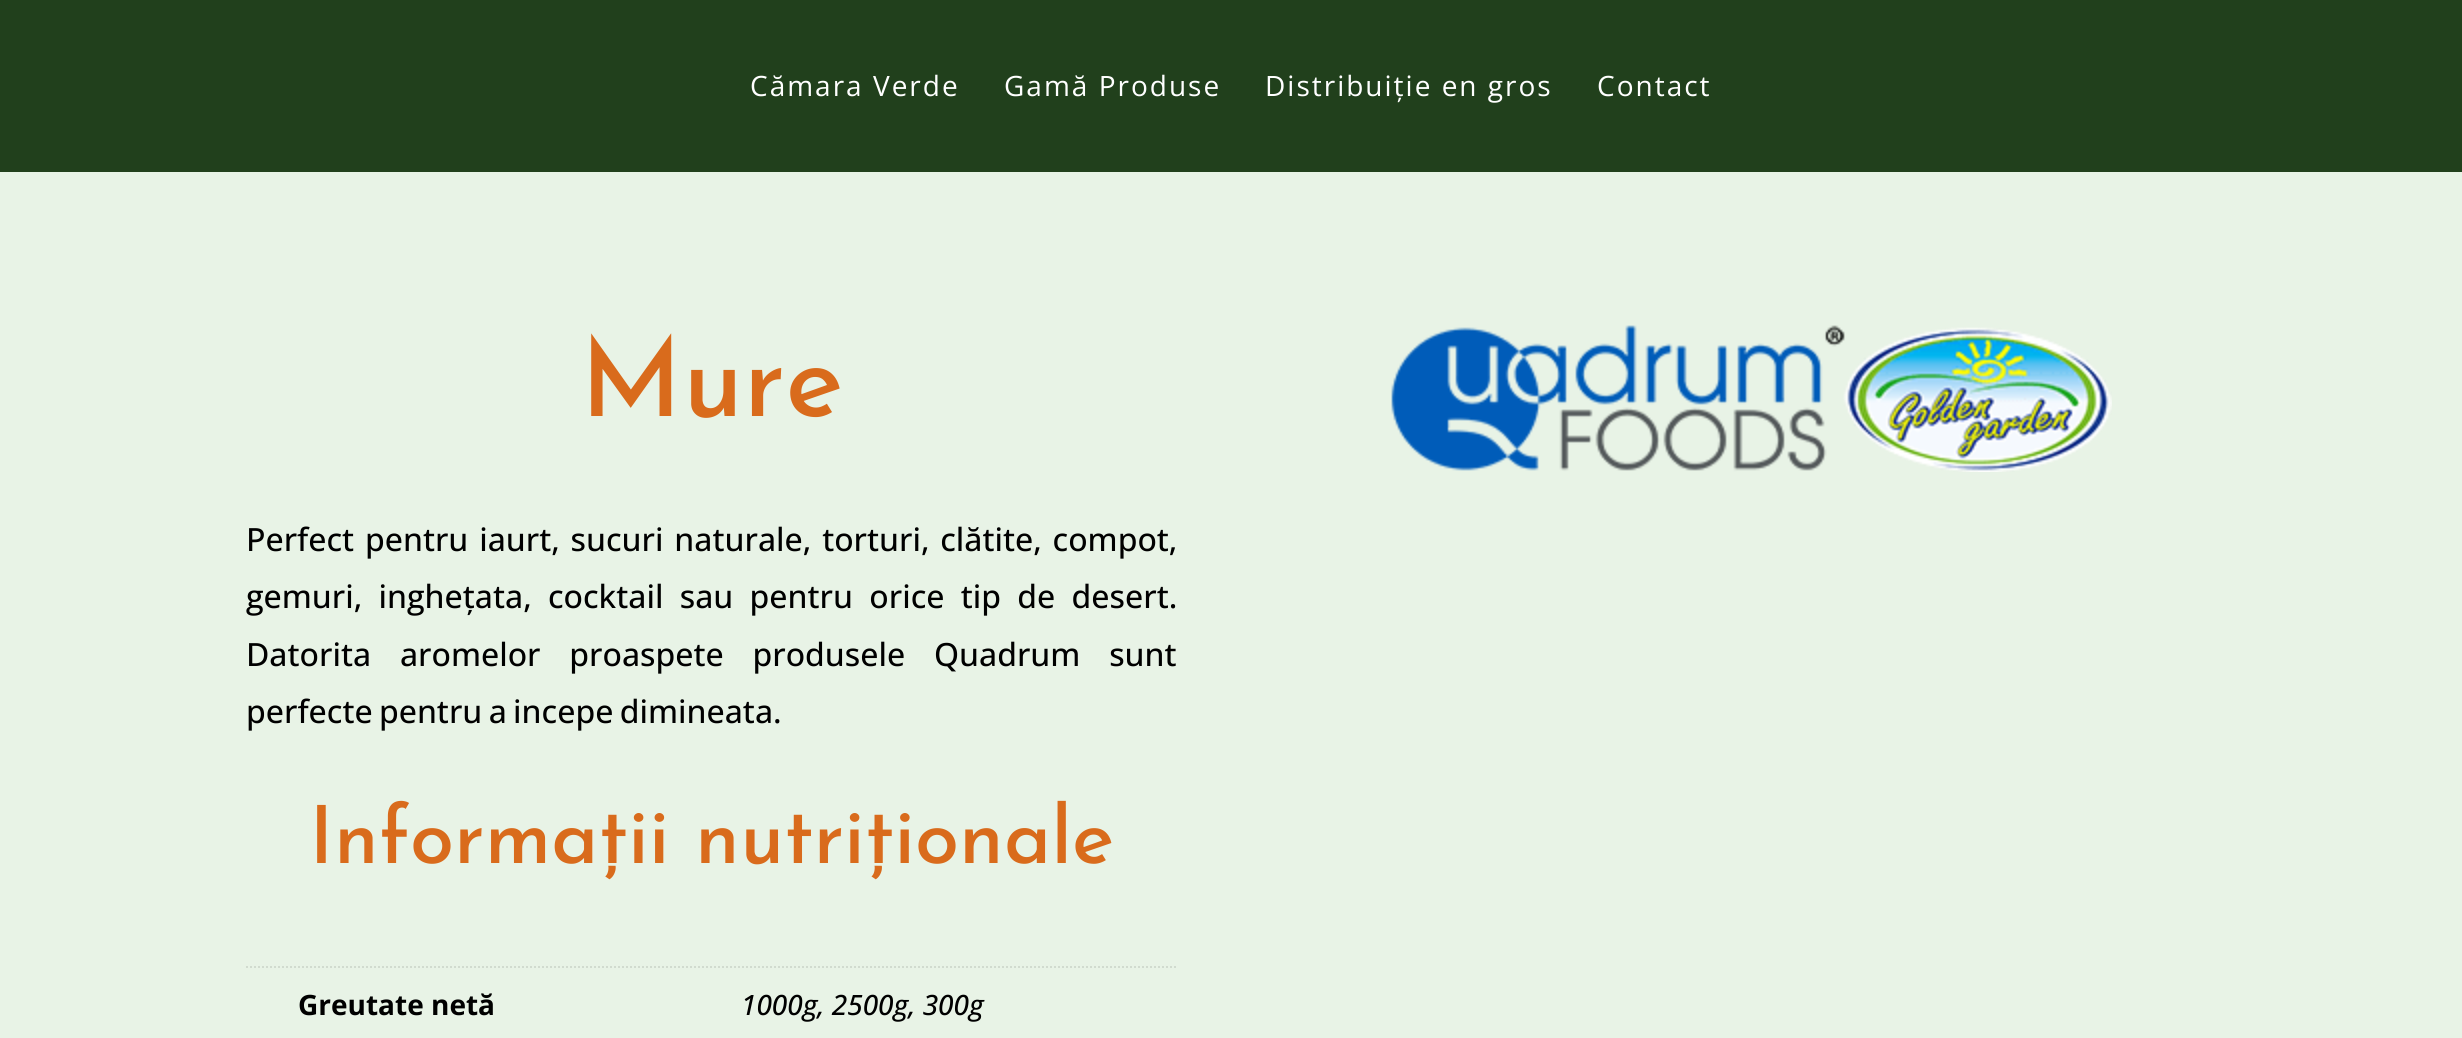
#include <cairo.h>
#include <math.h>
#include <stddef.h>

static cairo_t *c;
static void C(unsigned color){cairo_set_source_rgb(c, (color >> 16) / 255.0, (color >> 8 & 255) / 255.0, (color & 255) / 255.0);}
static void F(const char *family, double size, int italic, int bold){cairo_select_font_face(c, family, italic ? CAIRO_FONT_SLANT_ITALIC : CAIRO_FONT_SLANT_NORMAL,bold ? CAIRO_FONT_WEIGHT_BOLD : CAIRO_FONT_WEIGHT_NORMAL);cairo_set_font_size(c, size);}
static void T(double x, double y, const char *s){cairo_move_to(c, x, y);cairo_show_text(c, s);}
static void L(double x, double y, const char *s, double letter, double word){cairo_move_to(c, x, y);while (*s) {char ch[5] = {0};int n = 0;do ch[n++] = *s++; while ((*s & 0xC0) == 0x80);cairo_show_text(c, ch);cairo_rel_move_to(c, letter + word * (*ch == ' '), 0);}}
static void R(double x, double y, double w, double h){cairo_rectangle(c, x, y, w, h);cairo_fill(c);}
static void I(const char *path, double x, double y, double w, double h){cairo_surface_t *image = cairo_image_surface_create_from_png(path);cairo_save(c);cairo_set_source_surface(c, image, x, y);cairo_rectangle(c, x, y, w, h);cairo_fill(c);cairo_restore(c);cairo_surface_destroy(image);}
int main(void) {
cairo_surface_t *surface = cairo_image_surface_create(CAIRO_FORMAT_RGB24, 2462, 1038);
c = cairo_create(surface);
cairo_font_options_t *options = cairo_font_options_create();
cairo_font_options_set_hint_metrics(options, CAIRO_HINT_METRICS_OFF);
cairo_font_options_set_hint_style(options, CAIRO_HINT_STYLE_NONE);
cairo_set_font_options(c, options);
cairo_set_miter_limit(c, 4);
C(0xe8f3e6);
cairo_paint(c);
C(0x21401c);
R(0,0,2462,172);
F("Open Sans",28,0,0);
C(0xffffff);
L(750,96,"Cămara Verde",2,0);
L(1004,96,"Gamă Produse",2,0);
L(1265,96,"Distribuiție en gros",2,0);
L(1597,96,"Contact",2,0);
F("Josefin Sans Medium",110,0,0);
C(0xd96b1c);
T(580,416,"Mure");
F("Open Sans Medium",32,0,0);
C(0x000000);
L(246,551,"Perfect pentru iaurt, sucuri naturale, torturi, clătite, compot,",0,2.5);
L(246,608,"gemuri, inghețata, cocktail sau pentru orice tip de desert.",0,8);
L(246,666,"Datorita aromelor proaspete produsele Quadrum sunt",0,20.5);
L(246,723,"perfecte pentru a incepe dimineata.",0,-2);
F("Josefin Sans Medium",80,0,0);
C(0xd96b1c);
T(309,863,"Informații nutriționale");
cairo_new_path(c);
cairo_move_to(c,246,967);
cairo_line_to(c,1176,967);
C(0xd1dbcf);
cairo_set_dash(c,(double[]){2,2},2,0);
cairo_stroke(c);
F("Open Sans",28,0,1);
C(0x000000);
T(298,1015,"Greutate netă");
F("Open Sans Medium",28,1,0);
T(741,1015,"1000g, 2500g, 300g");
I("1.png",1391,325,721,147);
cairo_surface_write_to_png(surface, "o.png");
cairo_font_options_destroy(options);
cairo_destroy(c);
cairo_surface_destroy(surface);
return 0;
}
